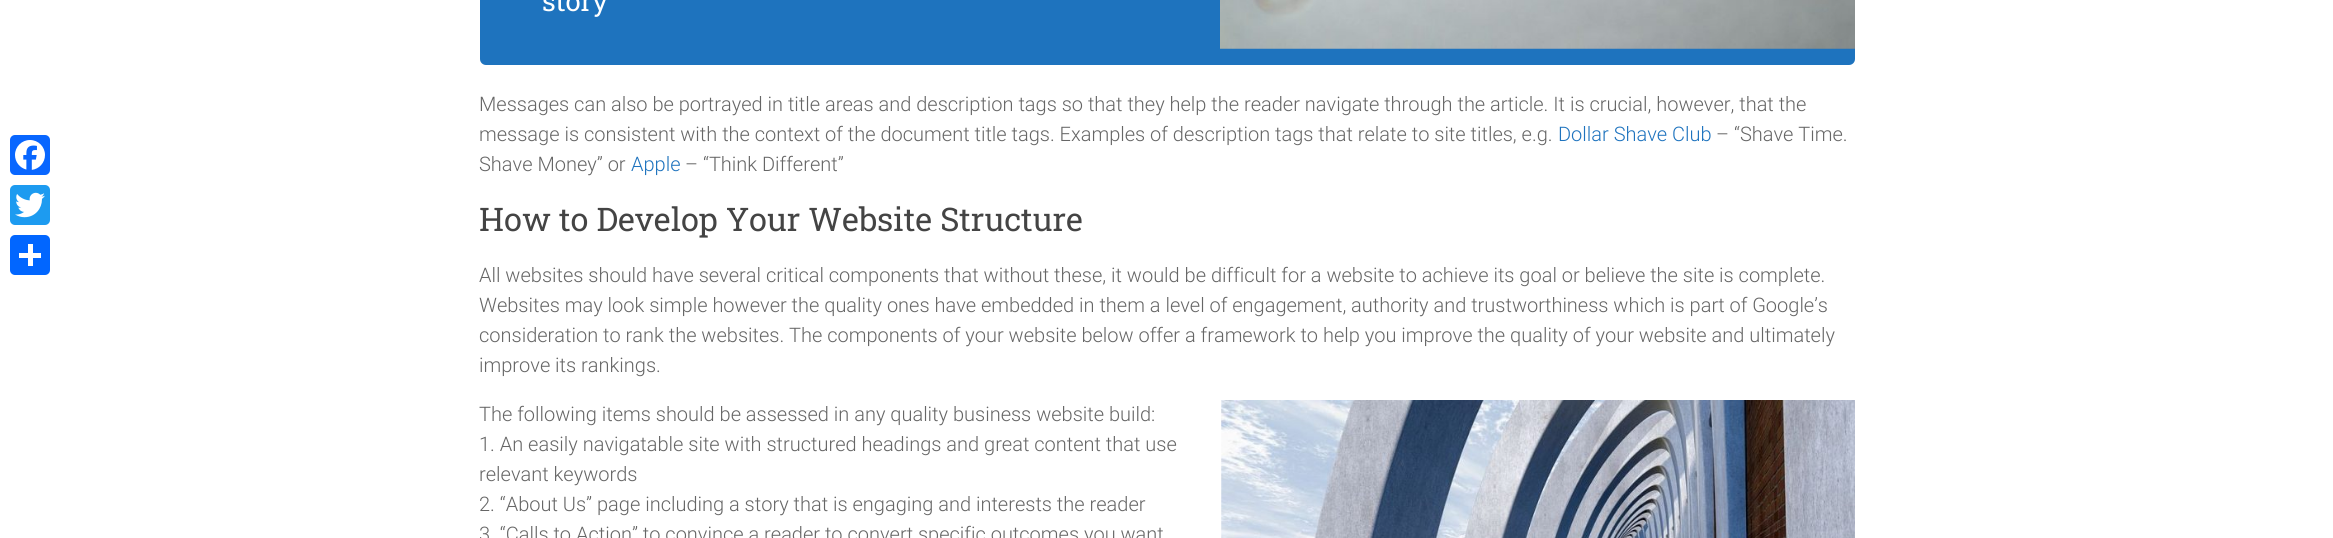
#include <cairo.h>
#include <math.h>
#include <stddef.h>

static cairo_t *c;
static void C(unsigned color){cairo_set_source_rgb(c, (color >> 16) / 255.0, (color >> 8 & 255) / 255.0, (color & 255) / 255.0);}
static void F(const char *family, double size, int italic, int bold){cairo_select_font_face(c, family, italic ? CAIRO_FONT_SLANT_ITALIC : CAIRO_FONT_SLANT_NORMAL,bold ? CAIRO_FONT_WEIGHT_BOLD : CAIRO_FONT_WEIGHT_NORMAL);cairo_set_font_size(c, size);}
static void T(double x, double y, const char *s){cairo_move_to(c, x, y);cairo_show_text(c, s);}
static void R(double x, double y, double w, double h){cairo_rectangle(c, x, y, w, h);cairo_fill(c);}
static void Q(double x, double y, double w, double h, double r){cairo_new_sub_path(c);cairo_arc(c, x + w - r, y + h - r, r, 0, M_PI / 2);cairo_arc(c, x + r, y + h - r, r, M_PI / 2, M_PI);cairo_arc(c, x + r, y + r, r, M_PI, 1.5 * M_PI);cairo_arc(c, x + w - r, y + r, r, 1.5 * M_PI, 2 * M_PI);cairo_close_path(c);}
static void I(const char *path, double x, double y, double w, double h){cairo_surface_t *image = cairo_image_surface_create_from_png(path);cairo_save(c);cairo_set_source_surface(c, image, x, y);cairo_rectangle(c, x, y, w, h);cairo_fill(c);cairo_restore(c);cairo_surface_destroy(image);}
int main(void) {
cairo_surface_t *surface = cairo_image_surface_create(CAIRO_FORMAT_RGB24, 2333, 538);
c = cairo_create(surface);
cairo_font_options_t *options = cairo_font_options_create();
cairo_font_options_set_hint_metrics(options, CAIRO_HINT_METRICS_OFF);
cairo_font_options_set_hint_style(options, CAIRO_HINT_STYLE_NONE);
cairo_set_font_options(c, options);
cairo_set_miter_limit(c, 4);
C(0xffffff);
cairo_paint(c);
C(0x0866ff);
Q(10,135,40,40,5);
cairo_fill(c);
I("1.png",15,140,30,30);
C(0x1d9bf0);
Q(10,185,40,40,5);
cairo_fill(c);
I("2.png",15,192,30,26);
C(0x0166ff);
Q(10,235,40,40,5);
cairo_fill(c);
C(0xffffff);
R(28,244,5,22);
R(19,253,22,5);
C(0x1e73be);
Q(480,-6,1375,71,6);
cairo_fill(c);
F("Roboto Slab",27.5,0,0);
C(0xffffff);
T(542,11,"story");
I("3.png",1220,0,635,49);
F("Roboto Light",20,0,0);
C(0x666666);
T(479,111,"Messages can also be portrayed in title areas and description tags so that they help the reader navigate through the article. It is crucial, however, that the");
T(479,141,"message is consistent with the context of the document title tags. Examples of description tags that relate to site titles, e.g.");
C(0x1e73be);
T(1558,141,"Dollar Shave Club");
C(0x666666);
T(1716,141,"– “Shave Time.");
T(479,171,"Shave Money” or");
C(0x1e73be);
T(631,171,"Apple");
C(0x666666);
T(685,171,"– “Think Different”");
F("Roboto Slab",32.5,0,0);
C(0x444444);
T(479,231,"How to Develop Your Website Structure");
F("Roboto Light",20,0,0);
C(0x666666);
T(479,282,"All websites should have several critical components that without these, it would be difficult for a website to achieve its goal or believe the site is complete.");
T(479,312,"Websites may look simple however the quality ones have embedded in them a level of engagement, authority and trustworthiness which is part of Google’s");
T(479,342,"consideration to rank the websites. The components of your website below offer a framework to help you improve the quality of your website and ultimately");
T(479,372,"improve its rankings.");
T(479,421,"The following items should be assessed in any quality business website build:");
I("4.png",1221,400,634,138);
T(479,451,"1. An easily navigatable site with structured headings and great content that use");
T(479,481,"relevant keywords");
T(479,511,"2. “About Us” page including a story that is engaging and interests the reader");
T(479,541,"3. “Calls to Action” to convince a reader to convert specific outcomes you want");
cairo_surface_write_to_png(surface, "o.png");
cairo_font_options_destroy(options);
cairo_destroy(c);
cairo_surface_destroy(surface);
return 0;
}
